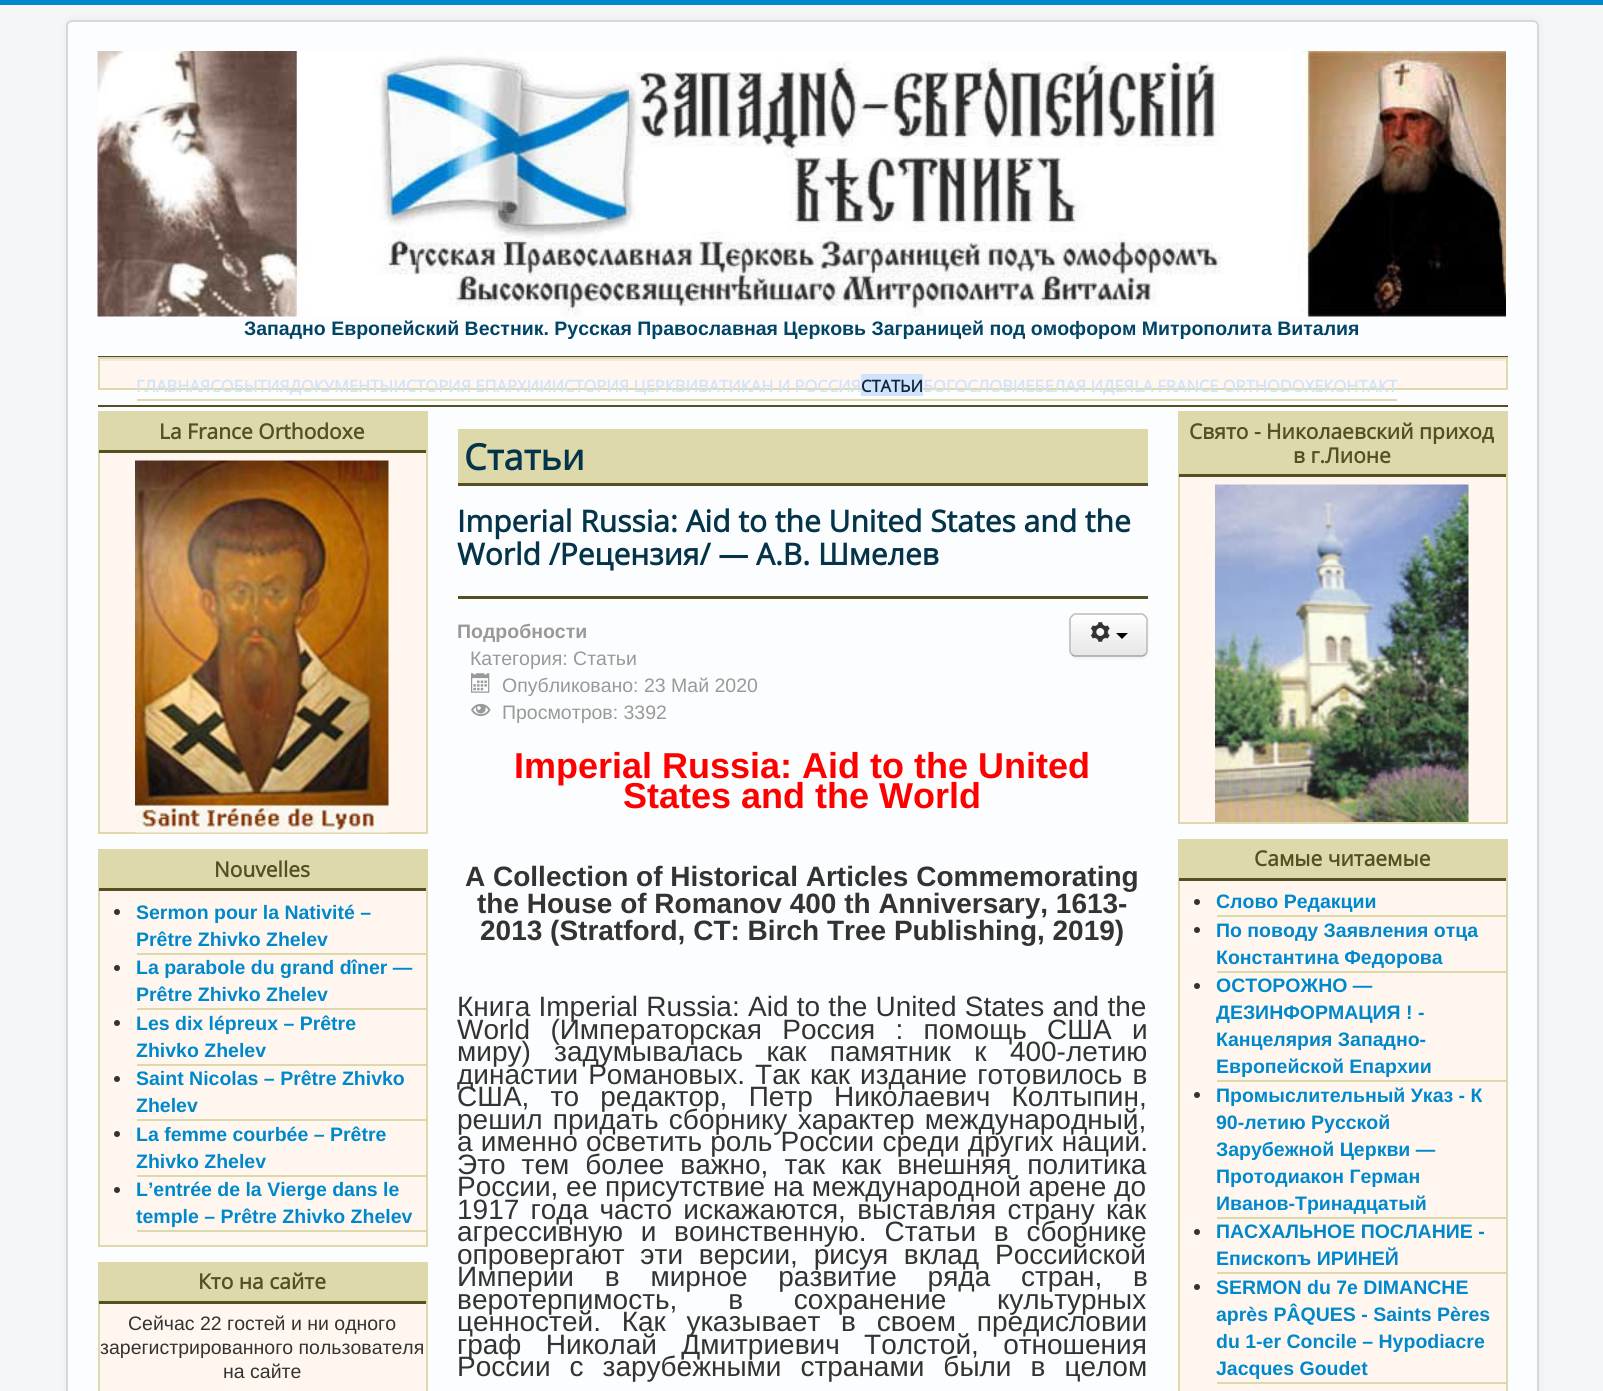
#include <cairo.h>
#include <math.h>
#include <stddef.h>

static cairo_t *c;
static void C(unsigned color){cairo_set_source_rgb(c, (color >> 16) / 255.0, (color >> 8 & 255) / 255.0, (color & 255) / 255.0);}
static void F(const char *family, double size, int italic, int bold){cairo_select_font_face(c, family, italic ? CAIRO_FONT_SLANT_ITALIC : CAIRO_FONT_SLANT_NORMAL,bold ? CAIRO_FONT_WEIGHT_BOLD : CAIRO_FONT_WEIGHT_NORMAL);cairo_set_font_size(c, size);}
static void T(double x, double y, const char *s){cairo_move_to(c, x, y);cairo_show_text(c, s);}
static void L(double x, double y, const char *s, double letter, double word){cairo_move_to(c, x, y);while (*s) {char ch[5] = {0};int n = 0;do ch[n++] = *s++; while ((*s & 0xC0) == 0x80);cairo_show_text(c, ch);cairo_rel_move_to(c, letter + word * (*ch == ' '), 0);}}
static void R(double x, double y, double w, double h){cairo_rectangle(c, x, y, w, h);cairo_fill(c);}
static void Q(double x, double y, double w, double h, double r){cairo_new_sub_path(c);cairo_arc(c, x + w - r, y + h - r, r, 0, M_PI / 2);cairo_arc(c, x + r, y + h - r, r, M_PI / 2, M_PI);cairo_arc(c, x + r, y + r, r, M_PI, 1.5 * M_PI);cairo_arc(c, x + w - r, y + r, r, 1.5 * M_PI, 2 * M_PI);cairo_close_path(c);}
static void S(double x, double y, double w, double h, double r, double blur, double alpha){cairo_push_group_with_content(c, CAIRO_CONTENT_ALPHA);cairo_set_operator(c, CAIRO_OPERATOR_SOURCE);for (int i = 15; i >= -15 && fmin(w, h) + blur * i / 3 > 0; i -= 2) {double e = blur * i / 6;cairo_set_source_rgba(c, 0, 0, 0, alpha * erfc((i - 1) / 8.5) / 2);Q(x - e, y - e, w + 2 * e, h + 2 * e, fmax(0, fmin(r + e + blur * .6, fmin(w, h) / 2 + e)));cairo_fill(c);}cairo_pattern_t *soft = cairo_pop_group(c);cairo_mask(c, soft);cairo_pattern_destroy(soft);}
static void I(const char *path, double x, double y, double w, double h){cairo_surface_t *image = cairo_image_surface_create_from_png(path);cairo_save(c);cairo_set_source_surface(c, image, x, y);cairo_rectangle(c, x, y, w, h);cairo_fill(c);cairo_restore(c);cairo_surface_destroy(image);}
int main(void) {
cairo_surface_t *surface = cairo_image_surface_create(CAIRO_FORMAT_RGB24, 1603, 1391);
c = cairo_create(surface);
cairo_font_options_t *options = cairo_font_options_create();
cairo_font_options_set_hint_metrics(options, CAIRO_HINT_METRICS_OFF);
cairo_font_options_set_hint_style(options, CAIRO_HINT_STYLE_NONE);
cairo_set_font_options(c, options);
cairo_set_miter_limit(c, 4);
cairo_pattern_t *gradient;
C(0xf4f6f7);
cairo_paint(c);
C(0x0088cc);
R(0,0,1603,5);
C(0x000000);
S(66,20,1473,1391,6,4.5,.05);
C(0xfcfdfe);
Q(67,21,1471,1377,5);
cairo_fill_preserve(c);
C(0xd6d7d8);
cairo_stroke(c);
I("1.png",97,51,1409,266);
F("Liberation Sans",19.5,0,1);
C(0x004466);
T(244,335,"Западно Европейский Вестник. Русская Православная Церковь Заграницей под омофором Митрополита Виталия");
C(0x545021);
R(98,356,1410,1);
R(98,405,1410,2);
C(0xfff7ef);
R(100,361,1406,27);
C(0xf2ebe3);
R(99,359,1407,2);
cairo_rectangle(c,99,358,1408,31);
C(0xddd9aa);
cairo_stroke(c);
R(137,399,1260,2);
F("Open Sans",16.5,0,1);
C(0xd1e3fb);
T(136,392,"ГЛАВНАЯCОБЫТИЯДОКУМЕНТЫИСТОРИЯ ЕПАРХИИИСТОРИЯ ЦЕРКВИВАТИКАН И РОССИЯ");
R(861,374,62,22);
C(0x11243d);
T(861,392,"СТАТЬИ");
C(0xd1e3fb);
T(923,392,"БОГОСЛОВИЕБЕЛАЯ ИДЕЯLA FRANCE ORTHODOXEКОНТАКТ");
C(0xfff7ef);
R(100,453,326,379);
cairo_rectangle(c,99,412,328,421);
C(0xddd9aa);
cairo_stroke(c);
R(100,413,326,37);
C(0x545021);
R(99,450,327,3);
F("Open Sans",21,0,1);
T(159,439,"La France Orthodoxe");
I("2.png",135,460,254,373);
C(0xfff7ef);
R(100,891,326,354);
cairo_rectangle(c,99,850,328,396);
C(0xddd9aa);
cairo_stroke(c);
R(100,851,326,37);
C(0x545021);
R(99,888,327,3);
T(214,877,"Nouvelles");
C(0xddd9aa);
R(137,953,289,2);
C(0x333333);
cairo_new_path(c);
cairo_arc(c,117,912,3,0,2 * M_PI);
cairo_fill(c);
F("Liberation Sans",19.5,0,1);
C(0x0088cc);
T(136,919,"Sermon pour la Nativité –");
T(136,946,"Prêtre Zhivko Zhelev");
C(0xddd9aa);
R(137,1008,289,2);
C(0x333333);
cairo_new_path(c);
cairo_arc(c,117,968,3,0,2 * M_PI);
cairo_fill(c);
C(0x0088cc);
T(136,974,"La parabole du grand dîner —");
T(136,1001,"Prêtre Zhivko Zhelev");
C(0xddd9aa);
R(137,1064,289,2);
C(0x333333);
cairo_new_path(c);
cairo_arc(c,117,1023,3,0,2 * M_PI);
cairo_fill(c);
C(0x0088cc);
T(136,1030,"Les dix lépreux – Prêtre");
T(136,1057,"Zhivko Zhelev");
C(0xddd9aa);
R(137,1119,289,2);
C(0x333333);
cairo_new_path(c);
cairo_arc(c,117,1079,3,0,2 * M_PI);
cairo_fill(c);
C(0x0088cc);
T(136,1085,"Saint Nicolas – Prêtre Zhivko");
T(136,1112,"Zhelev");
C(0xddd9aa);
R(137,1175,289,2);
C(0x333333);
cairo_new_path(c);
cairo_arc(c,117,1134,3,0,2 * M_PI);
cairo_fill(c);
C(0x0088cc);
T(136,1141,"La femme courbée – Prêtre");
T(136,1168,"Zhivko Zhelev");
C(0xddd9aa);
R(137,1230,289,2);
C(0x333333);
cairo_new_path(c);
cairo_arc(c,117,1190,3,0,2 * M_PI);
cairo_fill(c);
C(0x0088cc);
T(136,1196,"L’entrée de la Vierge dans le");
T(136,1223,"temple – Prêtre Zhivko Zhelev");
C(0xfff7ef);
R(100,1304,326,87);
cairo_rectangle(c,99,1263,328,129);
C(0xddd9aa);
cairo_stroke(c);
R(100,1264,326,37);
C(0x545021);
R(99,1301,327,3);
F("Open Sans",21,0,1);
T(198,1289,"Кто на сайте");
F("Liberation Sans",19.5,0,0);
C(0x333333);
T(128,1330,"Сейчас 22 гостей и ни одного");
T(100,1354,"зарегистрированного пользователя");
T(223,1378,"на сайте");
C(0x545021);
R(458,483,690,3);
C(0xddd9aa);
R(458,429,690,54);
F("Open Sans",36,0,1);
C(0x04344a);
T(464,470,"Статьи");
C(0x545021);
R(458,596,690,3);
F("Open Sans",30,0,1);
C(0x04344a);
T(457,532,"Imperial Russia: Aid to the United States and the");
T(457,565,"World /Рецензия/ — А.В. Шмелев");
F("Liberation Sans",19.5,0,1);
C(0x999999);
T(457,638,"Подробности");
F("Liberation Sans",19.5,0,0);
T(470,665,"Категория: Статьи");
I("3.png",471,673,19,20);
T(502,692,"Опубликовано: 23 Май 2020");
I("4.png",471,703,20,14);
T(502,719,"Просмотров: 3392");
C(0x000000);
S(1070,615,78,44,6,1.5,.05);
C(0xf5f5f5);
Q(1070,614,78,43,6);
cairo_fill(c);
cairo_save(c);
Q(1070,614,78,43,6);
cairo_clip(c);
gradient = cairo_pattern_create_linear(1109,615,1109,656);
cairo_pattern_add_color_stop_rgba(gradient,0,1,1,1,1);
cairo_pattern_add_color_stop_rgba(gradient,1,0.902,0.902,0.902,1);
cairo_set_source(c,gradient);
cairo_pattern_destroy(gradient);
R(1070,615,78,41);
cairo_restore(c);
cairo_new_path(c);
cairo_move_to(c,1145,654.5);
cairo_curve_to(c,1144,655.5,1143,656,1141.5,656);
cairo_line_to(c,1075.5,656);
cairo_curve_to(c,1074,656,1073,655.5,1072,654.5);
C(0xa2a2a2);
cairo_set_line_width(c,1.5);
cairo_stroke(c);
cairo_new_path(c);
cairo_move_to(c,1072,654.5);
cairo_curve_to(c,1071,653.5,1070,652.5,1070,651);
cairo_line_to(c,1070,619.5);
cairo_curve_to(c,1070,618,1071,617,1072,616);
cairo_curve_to(c,1073,615,1074,614,1075.5,614);
cairo_line_to(c,1141.5,614);
cairo_curve_to(c,1143,614,1144,615,1145,616);
cairo_curve_to(c,1146,617,1147,618,1147,619.5);
cairo_line_to(c,1147,651);
cairo_curve_to(c,1147,652.5,1146,653.5,1145,654.5);
C(0xbbbbbb);
cairo_stroke(c);
I("5.png",1090,622,20,20);
C(0x000000);
cairo_new_path(c);
cairo_move_to(c,1116,633);
cairo_line_to(c,1128,633);
cairo_line_to(c,1122,639);
cairo_close_path(c);
cairo_fill(c);
F("Liberation Sans",36,0,1);
C(0xff0000);
T(514,778,"Imperial Russia: Aid to the United");
T(623,808,"States and the World");
F("Liberation Sans",28,0,1);
C(0x333333);
T(465,886,"A Collection of Historical Articles Commemorating");
T(477,913,"the House of Romanov 400 th Anniversary, 1613-");
T(480,940,"2013 (Stratford, CT: Birch Tree Publishing, 2019)");
F("Liberation Sans",28,0,0);
L(457,1016,"Книга Imperial Russia: Aid to the United States and the",0,.5);
L(457,1039,"World (Императорская Россия : помощь США и",0,12.5);
L(457,1061,"миру) задумывалась как памятник к 400-летию",0,15.5);
L(457,1084,"династии Романовых. Так как издание готовилось в",0,2.25);
L(457,1106,"США, то редактор, Петр Николаевич Колтыпин,",0,13.5);
L(457,1129,"решил придать сборнику характер международный,",0,2.5);
L(457,1151,"а именно осветить роль России среди других наций.",0,.5);
L(457,1174,"Это тем более важно, так как внешняя политика",0,8.25);
T(457,1196,"России, ее присутствие на международной арене до");
L(457,1219,"1917 года часто искажаются, выставляя страну как",0,3.5);
L(457,1241,"агрессивную и воинственную. Статьи в сборнике",0,10);
L(457,1264,"опровергают эти версии, рисуя вклад Российской",0,8);
L(457,1286,"Империи в мирное развитие ряда стран, в",0,23);
L(457,1309,"веротерпимость, в сохранение культурных",0,43);
L(457,1331,"ценностей. Как указывает в своем предисловии",0,13);
L(457,1354,"граф Николай Дмитриевич Толстой, отношения",0,16.5);
L(457,1376,"России с зарубежными странами были в целом",0,11.25);
C(0xfff7ef);
R(1180,477,326,345);
cairo_rectangle(c,1179,412,328,411);
C(0xddd9aa);
cairo_set_line_width(c,2);
cairo_stroke(c);
R(1180,413,326,61);
C(0x545021);
R(1179,474,327,3);
F("Open Sans",21,0,1);
T(1189,439,"Свято - Николаевский приход");
T(1293,463,"в г.Лионе");
I("6.png",1215,484,254,338);
C(0xfff7ef);
R(1180,881,326,510);
cairo_rectangle(c,1179,840,328,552);
C(0xddd9aa);
cairo_stroke(c);
R(1180,841,326,37);
C(0x545021);
R(1179,878,327,3);
T(1254,866,"Самые читаемые");
C(0xddd9aa);
R(1217,915,289,2);
C(0x333333);
cairo_new_path(c);
cairo_arc(c,1197,902,3,0,2 * M_PI);
cairo_fill(c);
F("Liberation Sans",19.5,0,1);
C(0x0088cc);
T(1216,908,"Слово Редакции");
C(0xddd9aa);
R(1217,971,289,2);
C(0x333333);
cairo_new_path(c);
cairo_arc(c,1197,930,3,0,2 * M_PI);
cairo_fill(c);
C(0x0088cc);
T(1216,937,"По поводу Заявления отца");
T(1216,964,"Константина Федорова");
C(0xddd9aa);
R(1217,1080,289,2);
C(0x333333);
cairo_new_path(c);
cairo_arc(c,1197,986,3,0,2 * M_PI);
cairo_fill(c);
C(0x0088cc);
T(1216,992,"ОСТОРОЖНО —");
T(1216,1019,"ДЕЗИНФОРМАЦИЯ ! -");
T(1216,1046,"Канцелярия Западно-");
T(1216,1073,"Европейской Епархии");
C(0xddd9aa);
R(1217,1217,289,2);
C(0x333333);
cairo_new_path(c);
cairo_arc(c,1197,1095,3,0,2 * M_PI);
cairo_fill(c);
C(0x0088cc);
T(1216,1102,"Промыслительный Указ - К");
T(1216,1129,"90-летию Русской");
T(1216,1156,"Зарубежной Церкви —");
T(1216,1183,"Протодиакон Герман");
T(1216,1210,"Иванов-Тринадцатый");
C(0xddd9aa);
R(1217,1272,289,2);
C(0x333333);
cairo_new_path(c);
cairo_arc(c,1197,1232,3,0,2 * M_PI);
cairo_fill(c);
C(0x0088cc);
T(1216,1238,"ПАСХАЛЬНОЕ ПОСЛАНИЕ -");
T(1216,1265,"Епископъ ИРИНЕЙ");
C(0xddd9aa);
R(1217,1382,289,2);
C(0x333333);
cairo_new_path(c);
cairo_arc(c,1197,1287,3,0,2 * M_PI);
cairo_fill(c);
C(0x0088cc);
T(1216,1294,"SERMON du 7e DIMANCHE");
T(1216,1321,"après PÂQUES - Saints Pères");
T(1216,1348,"du 1-er Concile – Hypodiacre");
T(1216,1375,"Jacques Goudet");
cairo_surface_write_to_png(surface, "o.png");
cairo_font_options_destroy(options);
cairo_destroy(c);
cairo_surface_destroy(surface);
return 0;
}
